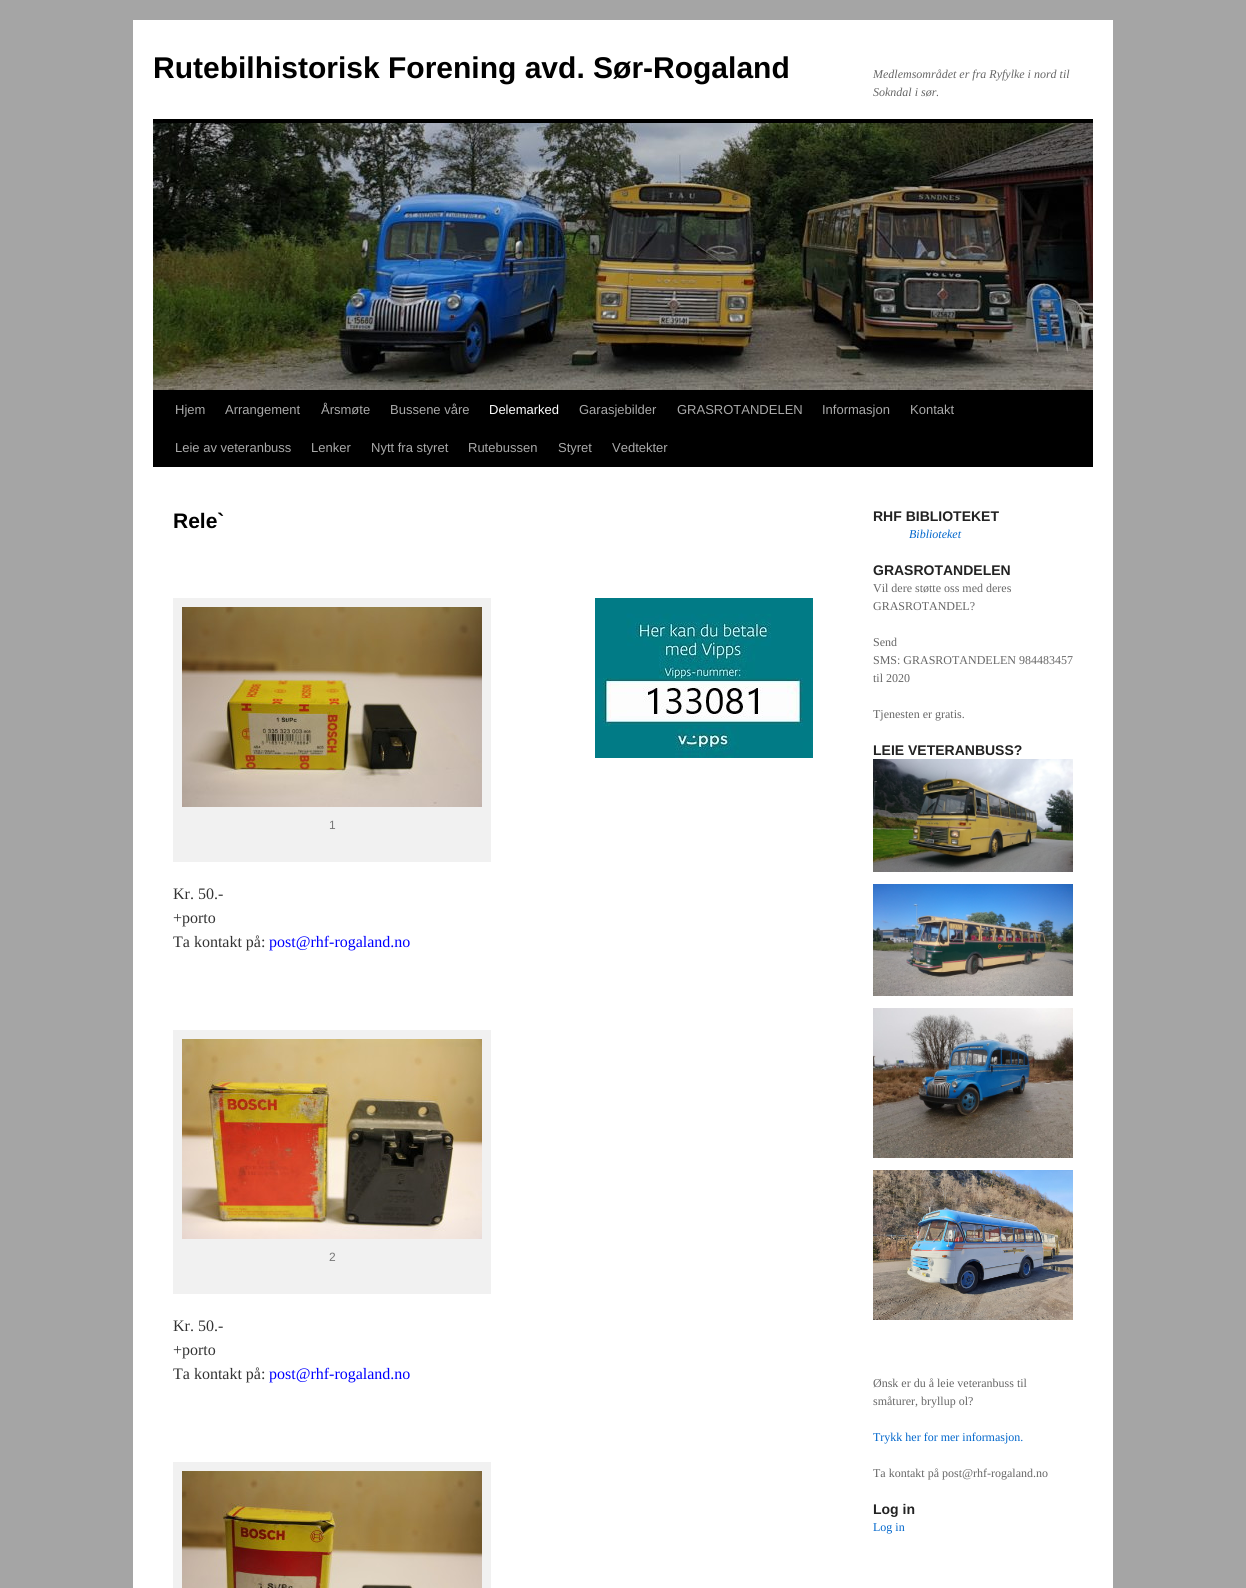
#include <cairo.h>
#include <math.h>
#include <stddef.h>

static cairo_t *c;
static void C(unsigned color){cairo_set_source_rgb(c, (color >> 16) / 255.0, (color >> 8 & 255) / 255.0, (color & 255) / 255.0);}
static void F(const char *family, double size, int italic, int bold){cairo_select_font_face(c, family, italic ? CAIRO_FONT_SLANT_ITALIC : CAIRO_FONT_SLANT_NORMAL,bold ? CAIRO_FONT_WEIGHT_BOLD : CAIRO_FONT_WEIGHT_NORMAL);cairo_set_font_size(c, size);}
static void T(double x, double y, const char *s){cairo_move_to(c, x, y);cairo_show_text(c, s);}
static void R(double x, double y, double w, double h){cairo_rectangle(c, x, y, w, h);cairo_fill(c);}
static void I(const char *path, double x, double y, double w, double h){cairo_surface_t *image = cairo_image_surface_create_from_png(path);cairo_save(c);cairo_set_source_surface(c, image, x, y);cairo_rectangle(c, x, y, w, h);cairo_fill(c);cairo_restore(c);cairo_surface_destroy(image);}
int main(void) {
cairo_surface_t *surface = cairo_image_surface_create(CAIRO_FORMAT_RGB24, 1246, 1588);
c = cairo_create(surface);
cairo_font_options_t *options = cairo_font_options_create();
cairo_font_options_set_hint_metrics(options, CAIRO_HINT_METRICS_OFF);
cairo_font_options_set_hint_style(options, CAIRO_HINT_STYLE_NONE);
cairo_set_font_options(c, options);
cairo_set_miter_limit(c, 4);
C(0xa5a5a5);
cairo_paint(c);
C(0xffffff);
R(133,20,980,1568);
F("Liberation Sans",30,0,1);
C(0x000000);
T(153,78,"Rutebilhistorisk Forening avd. Sør-Rogaland");
F("Liberation Serif",12,1,0);
C(0x666666);
T(873,78,"Medlemsområdet er fra Ryfylke i nord til");
T(873,96,"Sokndal i sør.");
C(0x000000);
R(153,119,940,4);
R(153,390,940,77);
I("1.png",153,123,940,267);
F("Liberation Sans",13,0,0);
C(0xaaaaaa);
T(175,414,"Hjem");
T(225,414,"Arrangement");
T(321,414,"Årsmøte");
T(390,414,"Bussene våre");
C(0xffffff);
T(489,414,"Delemarked");
C(0xaaaaaa);
T(579,414,"Garasjebilder");
T(677,414,"GRASROTANDELEN");
T(822,414,"Informasjon");
T(910,414,"Kontakt");
T(175,452,"Leie av veteranbuss");
T(311,452,"Lenker");
T(371,452,"Nytt fra styret");
T(468,452,"Rutebussen");
T(558,452,"Styret");
T(612,452,"Vedtekter");
F("Liberation Sans",21,0,1);
C(0x000000);
T(173,528,"Rele`");
I("2.png",595,598,218,160);
C(0xf1f1f1);
R(173,598,318,264);
I("3.png",182,607,300,200);
F("Liberation Sans",12,0,0);
C(0x777777);
T(329,829,"1");
F("Liberation Serif",16,0,0);
C(0x333333);
T(173,899,"Kr. 50.-");
T(173,923,"+porto");
T(173,947,"Ta kontakt på:");
C(0x0000ff);
T(269,947,"post@rhf-rogaland.no");
C(0xf1f1f1);
R(173,1030,318,264);
I("4.png",182,1039,300,200);
F("Liberation Sans",12,0,0);
C(0x777777);
T(329,1261,"2");
F("Liberation Serif",16,0,0);
C(0x333333);
T(173,1331,"Kr. 50.-");
T(173,1355,"+porto");
T(173,1379,"Ta kontakt på:");
C(0x0000ff);
T(269,1379,"post@rhf-rogaland.no");
C(0xf1f1f1);
R(173,1462,318,126);
I("5.png",182,1471,300,117);
F("Liberation Sans",14,0,1);
C(0x222222);
T(873,521,"RHF BIBLIOTEKET");
F("Liberation Serif",12,1,0);
C(0x0066cc);
T(909,538,"Biblioteket");
F("Liberation Sans",14,0,1);
C(0x222222);
T(873,575,"GRASROTANDELEN");
F("Liberation Serif",12,0,0);
C(0x666666);
T(873,592,"Vil dere støtte oss med deres");
T(873,610,"GRASROTANDEL?");
T(873,646,"Send");
T(873,664,"SMS: GRASROTANDELEN 984483457");
T(873,682,"til 2020");
T(873,718,"Tjenesten er gratis.");
F("Liberation Sans",14,0,1);
C(0x222222);
T(873,755,"LEIE VETERANBUSS?");
I("6.png",873,759,200,113);
I("7.png",873,884,200,112);
I("8.png",873,1008,200,150);
I("9.png",873,1170,200,150);
F("Liberation Serif",12,0,0);
C(0x666666);
T(873,1387,"Ønsk er du å leie veteranbuss til");
T(873,1405,"småturer, bryllup ol?");
C(0x0066cc);
T(873,1441,"Trykk her for mer informasjon.");
C(0x666666);
T(873,1477,"Ta kontakt på post@rhf-rogaland.no");
F("Liberation Sans",14,0,1);
C(0x222222);
T(873,1514,"Log in");
F("Liberation Serif",12,0,0);
C(0x0066cc);
T(873,1531,"Log in");
cairo_surface_write_to_png(surface, "o.png");
cairo_font_options_destroy(options);
cairo_destroy(c);
cairo_surface_destroy(surface);
return 0;
}
